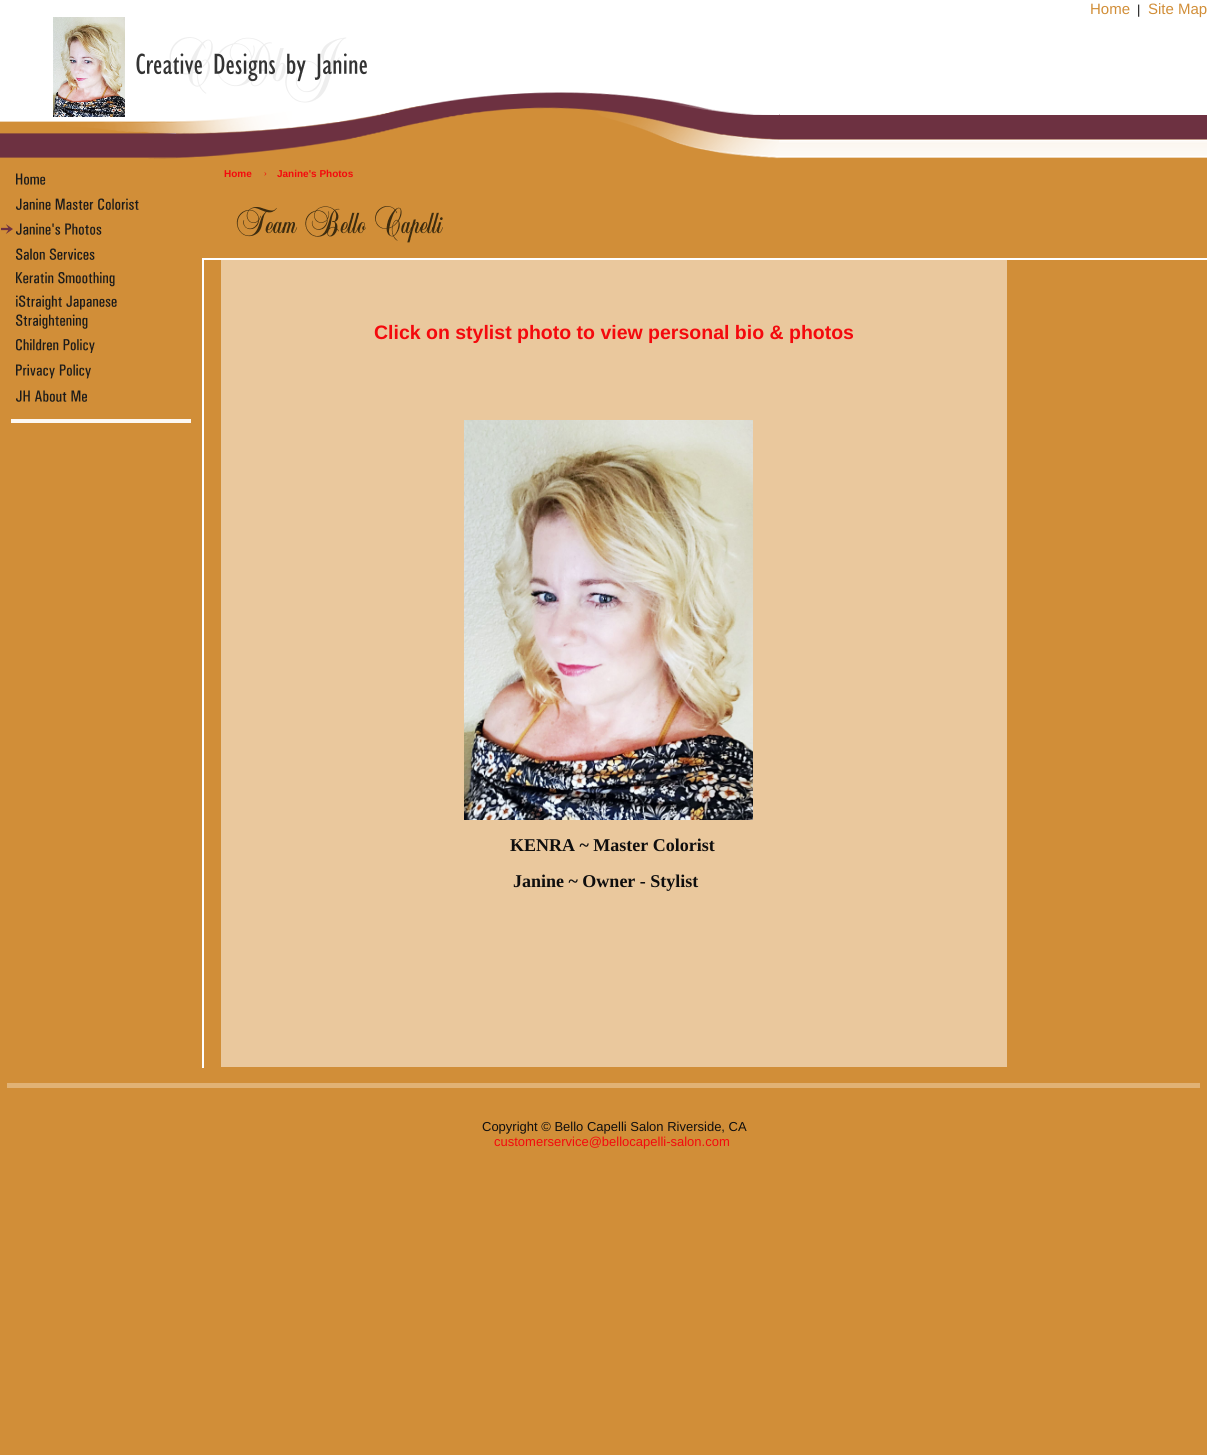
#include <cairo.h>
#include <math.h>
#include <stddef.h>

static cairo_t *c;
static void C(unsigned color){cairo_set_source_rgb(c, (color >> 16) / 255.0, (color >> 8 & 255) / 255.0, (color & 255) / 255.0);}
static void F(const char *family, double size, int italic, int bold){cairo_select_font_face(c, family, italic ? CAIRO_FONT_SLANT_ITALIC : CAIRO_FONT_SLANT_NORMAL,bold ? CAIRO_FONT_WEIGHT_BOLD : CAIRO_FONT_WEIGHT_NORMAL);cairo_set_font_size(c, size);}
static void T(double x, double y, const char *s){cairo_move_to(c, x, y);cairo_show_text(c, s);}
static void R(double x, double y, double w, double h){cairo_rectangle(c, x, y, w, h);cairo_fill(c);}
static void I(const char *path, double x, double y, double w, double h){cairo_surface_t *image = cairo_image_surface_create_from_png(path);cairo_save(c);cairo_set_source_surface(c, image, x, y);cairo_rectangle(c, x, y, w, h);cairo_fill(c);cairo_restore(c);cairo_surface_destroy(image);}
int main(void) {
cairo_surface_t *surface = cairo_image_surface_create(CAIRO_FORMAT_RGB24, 1207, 1455);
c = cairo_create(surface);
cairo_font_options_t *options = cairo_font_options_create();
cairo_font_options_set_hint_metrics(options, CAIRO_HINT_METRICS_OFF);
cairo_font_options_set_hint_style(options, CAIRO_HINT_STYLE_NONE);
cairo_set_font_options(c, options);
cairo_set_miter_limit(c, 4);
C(0xd18e38);
cairo_paint(c);
C(0xffffff);
R(0,0,1207,121);
F("Liberation Sans",15,0,0);
C(0xd18e38);
T(1090,14,"Home");
F("Liberation Sans",13,0,0);
C(0x0f0e0e);
T(1137,14,"|");
F("Liberation Sans",15,0,0);
C(0xd18e38);
T(1148,14,"Site Map");
I("1.png",0,121,53,38);
I("2.png",53,17,367,142);
I("3.png",420,92,360,67);
I("4.png",780,115,427,44);
I("5.png",16,173,30,12);
I("6.png",16,198,123,12);
I("7.png",1,223,101,12);
I("8.png",16,248,79,12);
I("9.png",16,272,99,15);
I("10.png",16,295,101,34);
I("11.png",16,339,79,14);
I("12.png",16,364,75,15);
I("13.png",16,390,71,12);
C(0xfcf8f3);
R(11,419,180,4);
F("Liberation Sans",10,0,1);
C(0xf4090d);
T(224,177,"Home");
F("Liberation Sans",8,0,0);
T(264,176,"›");
F("Liberation Sans",10,0,1);
T(277,177,"Janine's Photos");
I("14.png",236,206,207,37);
C(0xffffff);
R(202,258,20,2);
R(220,258,987,2);
R(202,258,2,810);
C(0xeac89d);
R(221,260,786,807);
F("Liberation Sans",19.5,0,1);
C(0xf4090d);
T(374,339,"Click on stylist photo to view personal bio & photos");
I("15.png",464,420,289,400);
F("Liberation Serif",18,0,1);
C(0x0f0e0e);
T(510,851,"KENRA ~ Master Colorist");
T(513,887,"Janine ~ Owner - Stylist");
C(0xe1b275);
R(7,1083,1193,5);
F("Liberation Sans",13,0,0);
C(0x0f0e0e);
T(482,1131,"Copyright © Bello Capelli Salon Riverside, CA");
C(0xf4090d);
T(494,1146,"customerservice@bellocapelli-salon.com");
cairo_surface_write_to_png(surface, "o.png");
cairo_font_options_destroy(options);
cairo_destroy(c);
cairo_surface_destroy(surface);
return 0;
}
